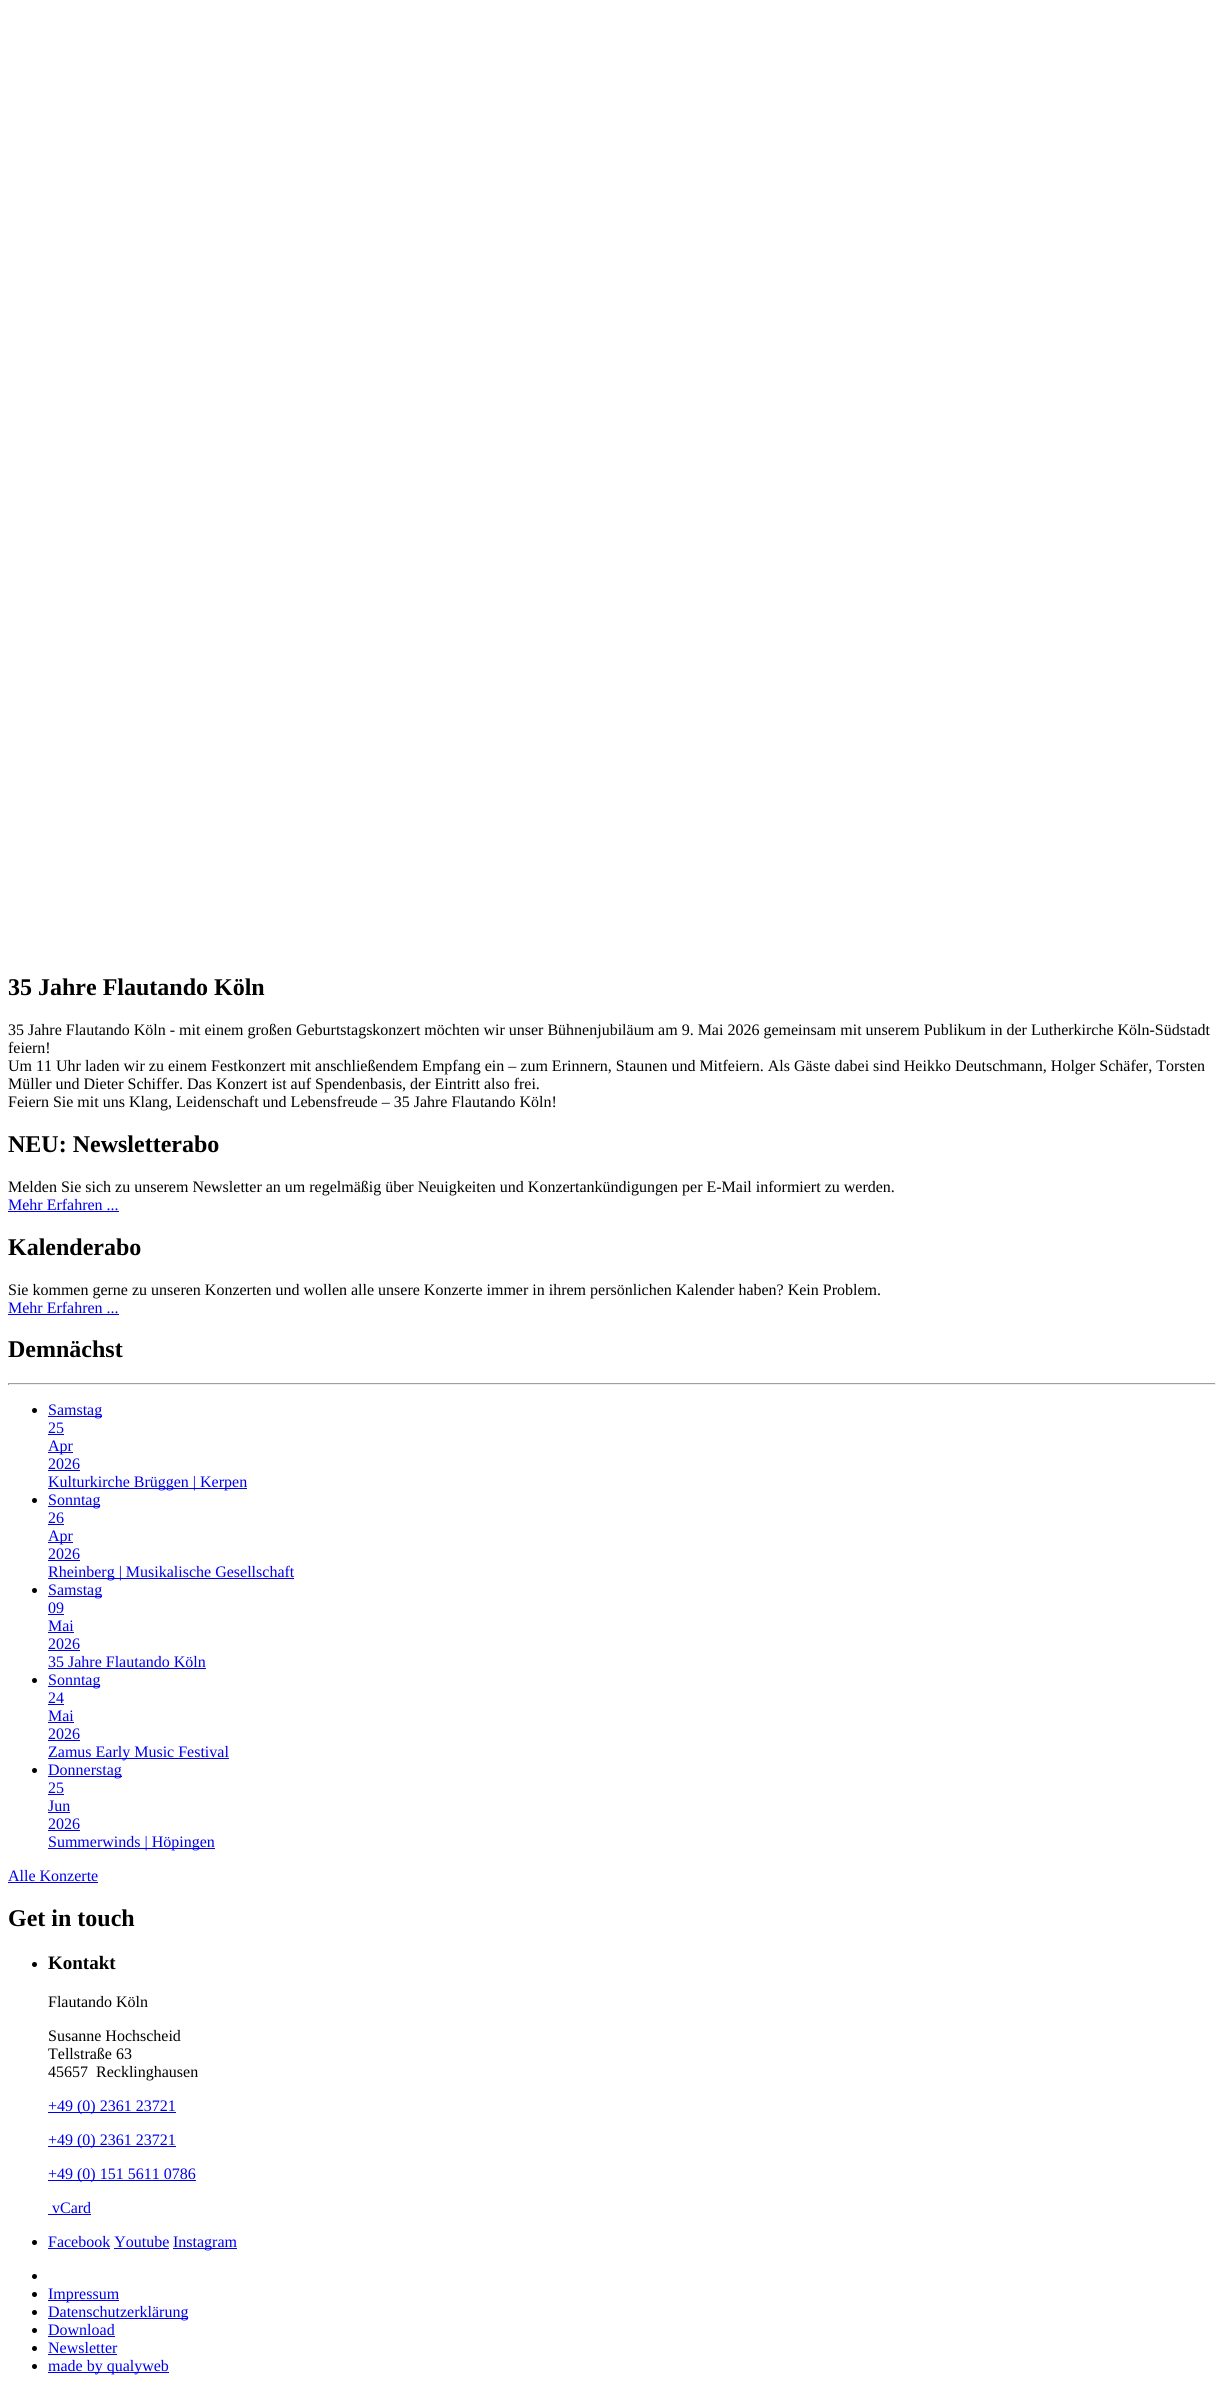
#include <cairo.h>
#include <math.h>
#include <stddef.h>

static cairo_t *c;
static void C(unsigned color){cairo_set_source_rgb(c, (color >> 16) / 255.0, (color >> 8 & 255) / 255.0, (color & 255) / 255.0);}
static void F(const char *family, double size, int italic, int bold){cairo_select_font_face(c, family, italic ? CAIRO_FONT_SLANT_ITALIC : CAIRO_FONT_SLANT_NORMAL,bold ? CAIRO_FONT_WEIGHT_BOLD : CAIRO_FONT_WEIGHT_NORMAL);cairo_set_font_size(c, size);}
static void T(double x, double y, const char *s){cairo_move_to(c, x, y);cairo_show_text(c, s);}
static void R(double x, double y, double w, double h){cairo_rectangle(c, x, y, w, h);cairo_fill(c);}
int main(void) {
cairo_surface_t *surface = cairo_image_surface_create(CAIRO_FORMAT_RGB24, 1224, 2391);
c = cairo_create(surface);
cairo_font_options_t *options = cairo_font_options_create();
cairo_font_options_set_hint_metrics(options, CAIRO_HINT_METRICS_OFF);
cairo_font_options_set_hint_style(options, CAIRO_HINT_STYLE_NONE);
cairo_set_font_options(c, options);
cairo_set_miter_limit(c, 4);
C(0xffffff);
cairo_paint(c);
F("Liberation Serif",24,0,1);
C(0x000000);
T(8,995,"35 Jahre Flautando Köln");
F("Liberation Serif",16,0,0);
T(8,1035,"35 Jahre Flautando Köln - mit einem großen Geburtstagskonzert möchten wir unser Bühnenjubiläum am 9. Mai 2026 gemeinsam mit unserem Publikum in der Lutherkirche Köln-Südstadt");
T(8,1053,"feiern!");
T(8,1071,"Um 11 Uhr laden wir zu einem Festkonzert mit anschließendem Empfang ein – zum Erinnern, Staunen und Mitfeiern. Als Gäste dabei sind Heikko Deutschmann, Holger Schäfer, Torsten");
T(8,1089,"Müller und Dieter Schiffer. Das Konzert ist auf Spendenbasis, der Eintritt also frei.");
T(8,1107,"Feiern Sie mit uns Klang, Leidenschaft und Lebensfreude – 35 Jahre Flautando Köln!");
F("Liberation Serif",24,0,1);
T(8,1152,"NEU: Newsletterabo");
F("Liberation Serif",16,0,0);
T(8,1192,"Melden Sie sich zu unserem Newsletter an um regelmäßig über Neuigkeiten und Konzertankündigungen per E-Mail informiert zu werden.");
C(0x0000ee);
T(8,1210,"Mehr Erfahren ...");
R(8,1211,111,1);
F("Liberation Serif",24,0,1);
C(0x000000);
T(8,1255,"Kalenderabo");
F("Liberation Serif",16,0,0);
T(8,1295,"Sie kommen gerne zu unseren Konzerten und wollen alle unsere Konzerte immer in ihrem persönlichen Kalender haben? Kein Problem.");
C(0x0000ee);
T(8,1313,"Mehr Erfahren ...");
R(8,1314,111,1);
F("Liberation Serif",24,0,1);
C(0x000000);
T(8,1357,"Demnächst");
C(0x9f9f9f);
R(8,1383,1208,1);
C(0xeeeeee);
R(1215,1383,1,2);
R(8,1384,1208,1);
C(0x9f9f9f);
R(8,1383,1,2);
C(0x000000);
cairo_new_path(c);
cairo_arc(c,34.5,1410.5,2.5,0,2 * M_PI);
cairo_fill(c);
C(0x0000ee);
R(48,1416,54,1);
F("Liberation Serif",16,0,0);
T(48,1415,"Samstag");
T(48,1433,"25");
R(48,1434,16,1);
R(48,1452,25,1);
T(48,1451,"Apr");
T(48,1469,"2026");
R(48,1470,32,1);
R(48,1488,199,1);
T(48,1487,"Kulturkirche Brüggen | Kerpen");
C(0x000000);
cairo_new_path(c);
cairo_arc(c,34.5,1500.5,2.5,0,2 * M_PI);
cairo_fill(c);
C(0x0000ee);
R(48,1506,52,1);
T(48,1505,"Sonntag");
T(48,1523,"26");
R(48,1524,16,1);
R(48,1542,25,1);
T(48,1541,"Apr");
T(48,1559,"2026");
R(48,1560,32,1);
R(48,1578,246,1);
T(48,1577,"Rheinberg | Musikalische Gesellschaft");
C(0x000000);
cairo_new_path(c);
cairo_arc(c,34.5,1590.5,2.5,0,2 * M_PI);
cairo_fill(c);
C(0x0000ee);
R(48,1596,54,1);
T(48,1595,"Samstag");
T(48,1613,"09");
R(48,1614,16,1);
T(48,1631,"Mai");
R(48,1632,26,1);
T(48,1649,"2026");
R(48,1650,32,1);
T(48,1667,"35 Jahre Flautando Köln");
R(48,1668,158,1);
C(0x000000);
cairo_new_path(c);
cairo_arc(c,34.5,1680.5,2.5,0,2 * M_PI);
cairo_fill(c);
C(0x0000ee);
R(48,1686,52,1);
T(48,1685,"Sonntag");
T(48,1703,"24");
R(48,1704,16,1);
T(48,1721,"Mai");
R(48,1722,26,1);
T(48,1739,"2026");
R(48,1740,32,1);
R(48,1758,181,1);
T(48,1757,"Zamus Early Music Festival");
C(0x000000);
cairo_new_path(c);
cairo_arc(c,34.5,1770.5,2.5,0,2 * M_PI);
cairo_fill(c);
C(0x0000ee);
R(48,1776,74,1);
T(48,1775,"Donnerstag");
T(48,1793,"25");
R(48,1794,16,1);
T(48,1811,"Jun");
R(48,1812,22,1);
T(48,1829,"2026");
R(48,1830,32,1);
R(48,1848,167,1);
T(48,1847,"Summerwinds | Höpingen");
T(8,1881,"Alle Konzerte");
R(8,1882,90,1);
F("Liberation Serif",24,0,1);
C(0x000000);
T(8,1926,"Get in touch");
cairo_new_path(c);
cairo_arc(c,34.5,1964.5,2.5,0,2 * M_PI);
cairo_fill(c);
F("Liberation Serif",19,0,1);
T(48,1969,"Kontakt");
F("Liberation Serif",16,0,0);
T(48,2007,"Flautando Köln");
T(48,2041,"Susanne Hochscheid");
T(48,2059,"Tellstraße 63");
T(48,2077,"45657");
T(96,2077,"Recklinghausen");
C(0x0000ee);
R(48,2112,128,1);
T(48,2111,"+49 (0) 2361 23721");
R(48,2146,128,1);
T(48,2145,"+49 (0) 2361 23721");
R(48,2180,148,1);
T(48,2179,"+49 (0) 151 5611 0786");
T(52,2213,"vCard");
R(48,2214,43,1);
C(0x000000);
cairo_new_path(c);
cairo_arc(c,34.5,2242.5,2.5,0,2 * M_PI);
cairo_fill(c);
C(0x0000ee);
T(48,2247,"Facebook Youtube");
R(48,2248,62,1);
R(173,2248,64,1);
T(173,2247,"Instagram");
R(114,2248,55,1);
C(0x000000);
cairo_new_path(c);
cairo_arc(c,34.5,2276.5,2.5,0,2 * M_PI);
cairo_fill(c);
cairo_arc(c,34.5,2294.5,2.5,0,2 * M_PI);
cairo_fill(c);
C(0x0000ee);
R(48,2300,71,1);
T(48,2299,"Impressum");
C(0x000000);
cairo_new_path(c);
cairo_arc(c,34.5,2312.5,2.5,0,2 * M_PI);
cairo_fill(c);
C(0x0000ee);
R(48,2318,140,1);
T(48,2317,"Datenschutzerklärung");
C(0x000000);
cairo_new_path(c);
cairo_arc(c,34.5,2330.5,2.5,0,2 * M_PI);
cairo_fill(c);
C(0x0000ee);
T(48,2335,"Download");
R(48,2336,67,1);
C(0x000000);
cairo_new_path(c);
cairo_arc(c,34.5,2348.5,2.5,0,2 * M_PI);
cairo_fill(c);
C(0x0000ee);
T(48,2353,"Newsletter");
R(48,2354,69,1);
C(0x000000);
cairo_new_path(c);
cairo_arc(c,34.5,2366.5,2.5,0,2 * M_PI);
cairo_fill(c);
C(0x0000ee);
R(48,2372,121,1);
T(48,2371,"made by qualyweb");
cairo_surface_write_to_png(surface, "o.png");
cairo_font_options_destroy(options);
cairo_destroy(c);
cairo_surface_destroy(surface);
return 0;
}
